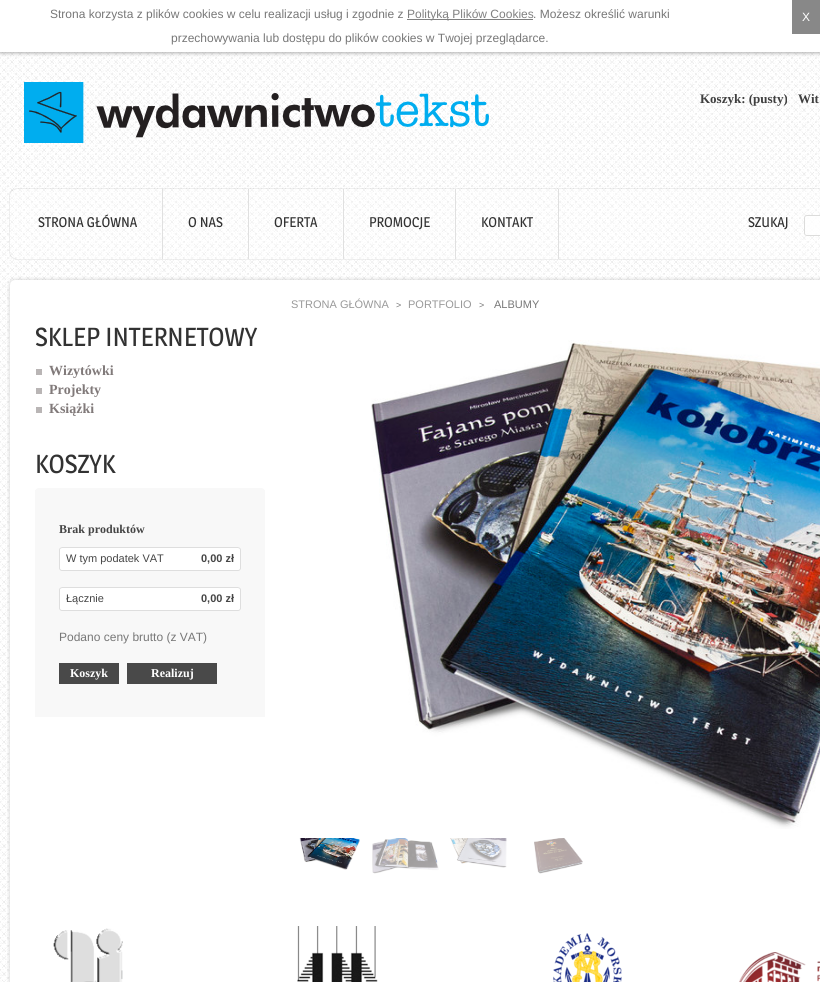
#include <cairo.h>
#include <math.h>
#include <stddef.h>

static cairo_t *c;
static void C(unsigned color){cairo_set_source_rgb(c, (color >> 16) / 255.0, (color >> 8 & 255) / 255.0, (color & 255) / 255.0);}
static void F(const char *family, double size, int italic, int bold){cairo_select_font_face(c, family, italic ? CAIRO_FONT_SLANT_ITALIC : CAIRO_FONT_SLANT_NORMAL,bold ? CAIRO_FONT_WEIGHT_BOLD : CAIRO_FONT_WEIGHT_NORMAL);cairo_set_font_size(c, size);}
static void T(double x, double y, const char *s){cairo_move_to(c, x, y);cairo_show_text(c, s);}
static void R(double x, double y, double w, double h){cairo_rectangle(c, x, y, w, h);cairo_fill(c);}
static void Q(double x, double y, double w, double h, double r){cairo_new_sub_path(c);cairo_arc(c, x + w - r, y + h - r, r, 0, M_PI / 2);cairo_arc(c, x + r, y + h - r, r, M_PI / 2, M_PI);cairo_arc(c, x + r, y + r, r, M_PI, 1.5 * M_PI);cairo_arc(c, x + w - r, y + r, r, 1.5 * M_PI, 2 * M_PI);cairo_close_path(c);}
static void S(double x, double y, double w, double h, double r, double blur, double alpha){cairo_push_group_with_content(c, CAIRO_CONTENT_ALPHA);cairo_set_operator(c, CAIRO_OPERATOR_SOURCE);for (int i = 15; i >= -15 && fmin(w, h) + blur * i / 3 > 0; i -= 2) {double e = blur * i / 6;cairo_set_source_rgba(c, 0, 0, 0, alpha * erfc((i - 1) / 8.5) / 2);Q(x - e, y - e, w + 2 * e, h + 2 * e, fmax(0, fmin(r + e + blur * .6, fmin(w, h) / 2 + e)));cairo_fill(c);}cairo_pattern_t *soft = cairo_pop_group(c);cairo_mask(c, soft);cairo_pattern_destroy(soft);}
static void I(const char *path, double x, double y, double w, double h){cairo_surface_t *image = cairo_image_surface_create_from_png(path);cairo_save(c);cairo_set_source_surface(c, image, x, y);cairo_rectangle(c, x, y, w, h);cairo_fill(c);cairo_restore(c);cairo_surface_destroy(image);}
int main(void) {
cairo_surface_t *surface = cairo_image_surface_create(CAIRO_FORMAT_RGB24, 820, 982);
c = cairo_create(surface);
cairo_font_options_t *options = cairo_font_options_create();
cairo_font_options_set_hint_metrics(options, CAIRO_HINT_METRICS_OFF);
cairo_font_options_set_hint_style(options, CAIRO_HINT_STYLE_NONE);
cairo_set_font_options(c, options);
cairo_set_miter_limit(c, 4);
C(0xffffff);
cairo_paint(c);
I("1.png",0,52,820,930);
cairo_save(c);
cairo_rectangle(c,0,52,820,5);
cairo_clip(c);
C(0x888888);
S(0,0,820,52,0,2.5,1);
cairo_restore(c);
F("Liberation Sans",12,0,0);
C(0x777777);
T(50,18,"Strona korzysta z plików cookies w celu realizacji usług i zgodnie z");
C(0x808080);
R(407,19,126,1);
T(407,18,"Polityką Plików Cookies");
C(0x777777);
T(533,18,". Możesz określić warunki");
T(171,42,"przechowywania lub dostępu do plików cookies w Twojej przeglądarce.");
C(0x888888);
R(792,0,28,34);
C(0xffffff);
T(802,21,"X");
I("2.png",9,188,811,72);
I("3.png",24,82,465,61);
F("Liberation Serif",13,0,1);
C(0x3f3f3f);
T(700,103,"Koszyk: (pusty)");
T(798,103,"Wit");
C(0xe0e0e0);
R(162,189,1,70);
F("Magra",14,0,0);
C(0x323232);
T(38,227,"STRONA GŁÓWNA");
C(0xe0e0e0);
R(248,189,1,70);
C(0x323232);
T(188,227,"O NAS");
C(0xe0e0e0);
R(343,189,1,70);
C(0x323232);
T(274,227,"OFERTA");
C(0xe0e0e0);
R(455,189,1,70);
C(0x323232);
T(369,227,"PROMOCJE");
C(0xe0e0e0);
R(558,189,1,70);
C(0x323232);
T(481,227,"KONTAKT");
T(748,227,"SZUKAJ");
I("4.png",804,215,16,21);
I("5.png",8,277,812,8);
I("6.png",7,285,813,697);
F("Liberation Sans",11,0,0);
C(0x999999);
T(291,308,"STRONA GŁÓWNA");
F("Liberation Sans",9,0,0);
C(0x777777);
T(396,308,">");
F("Liberation Sans",11,0,0);
C(0x999999);
T(408,308,"PORTFOLIO");
F("Liberation Sans",9,0,0);
C(0x777777);
T(479,308,">");
F("Liberation Sans",11,0,0);
T(494,308,"ALBUMY");
I("7.png",371,340,449,489);
I("8.png",299,838,61,32);
I("9.png",372,838,67,36);
I("10.png",450,838,57,30);
I("11.png",534,838,49,36);
F("Magra",26,0,0);
C(0x323232);
T(35,346,"SKLEP INTERNETOWY");
C(0xb9b5b5);
R(36,369,6,6);
F("Liberation Serif",14,0,1);
C(0x817a7a);
T(49,375,"Wizytówki");
C(0xb9b5b5);
R(36,388,6,6);
C(0x817a7a);
T(49,394,"Projekty");
C(0xb9b5b5);
R(36,407,6,6);
C(0x817a7a);
T(49,413,"Książki");
C(0xf8f8f8);
R(35,490,230,227);
F("Magra",26,0,0);
C(0x323232);
T(35,473,"KOSZYK");
I("12.png",35,488,230,2);
F("Liberation Serif",12,0,1);
C(0x454545);
T(59,533,"Brak produktów");
I("13.png",59,547,182,24);
F("Liberation Sans",11,0,0);
T(66,562,"W tym podatek VAT");
F("Liberation Sans",11,0,1);
T(201,562,"0,00 zł");
I("13.png",59,587,182,24);
F("Liberation Sans",11,0,0);
T(66,602,"Łącznie");
F("Liberation Sans",11,0,1);
T(201,602,"0,00 zł");
F("Liberation Sans",12,0,0);
C(0x777777);
T(59,641,"Podano ceny brutto (z VAT)");
C(0x494949);
R(59,663,60,21);
F("Liberation Serif",12,0,1);
C(0xffffff);
T(70,677,"Koszyk");
C(0x494949);
R(127,663,90,21);
C(0xffffff);
T(151,677,"Realizuj");
I("14.png",53,928,70,54);
I("15.png",297,926,81,56);
I("16.png",553,933,69,49);
I("17.png",739,952,81,30);
cairo_surface_write_to_png(surface, "o.png");
cairo_font_options_destroy(options);
cairo_destroy(c);
cairo_surface_destroy(surface);
return 0;
}
